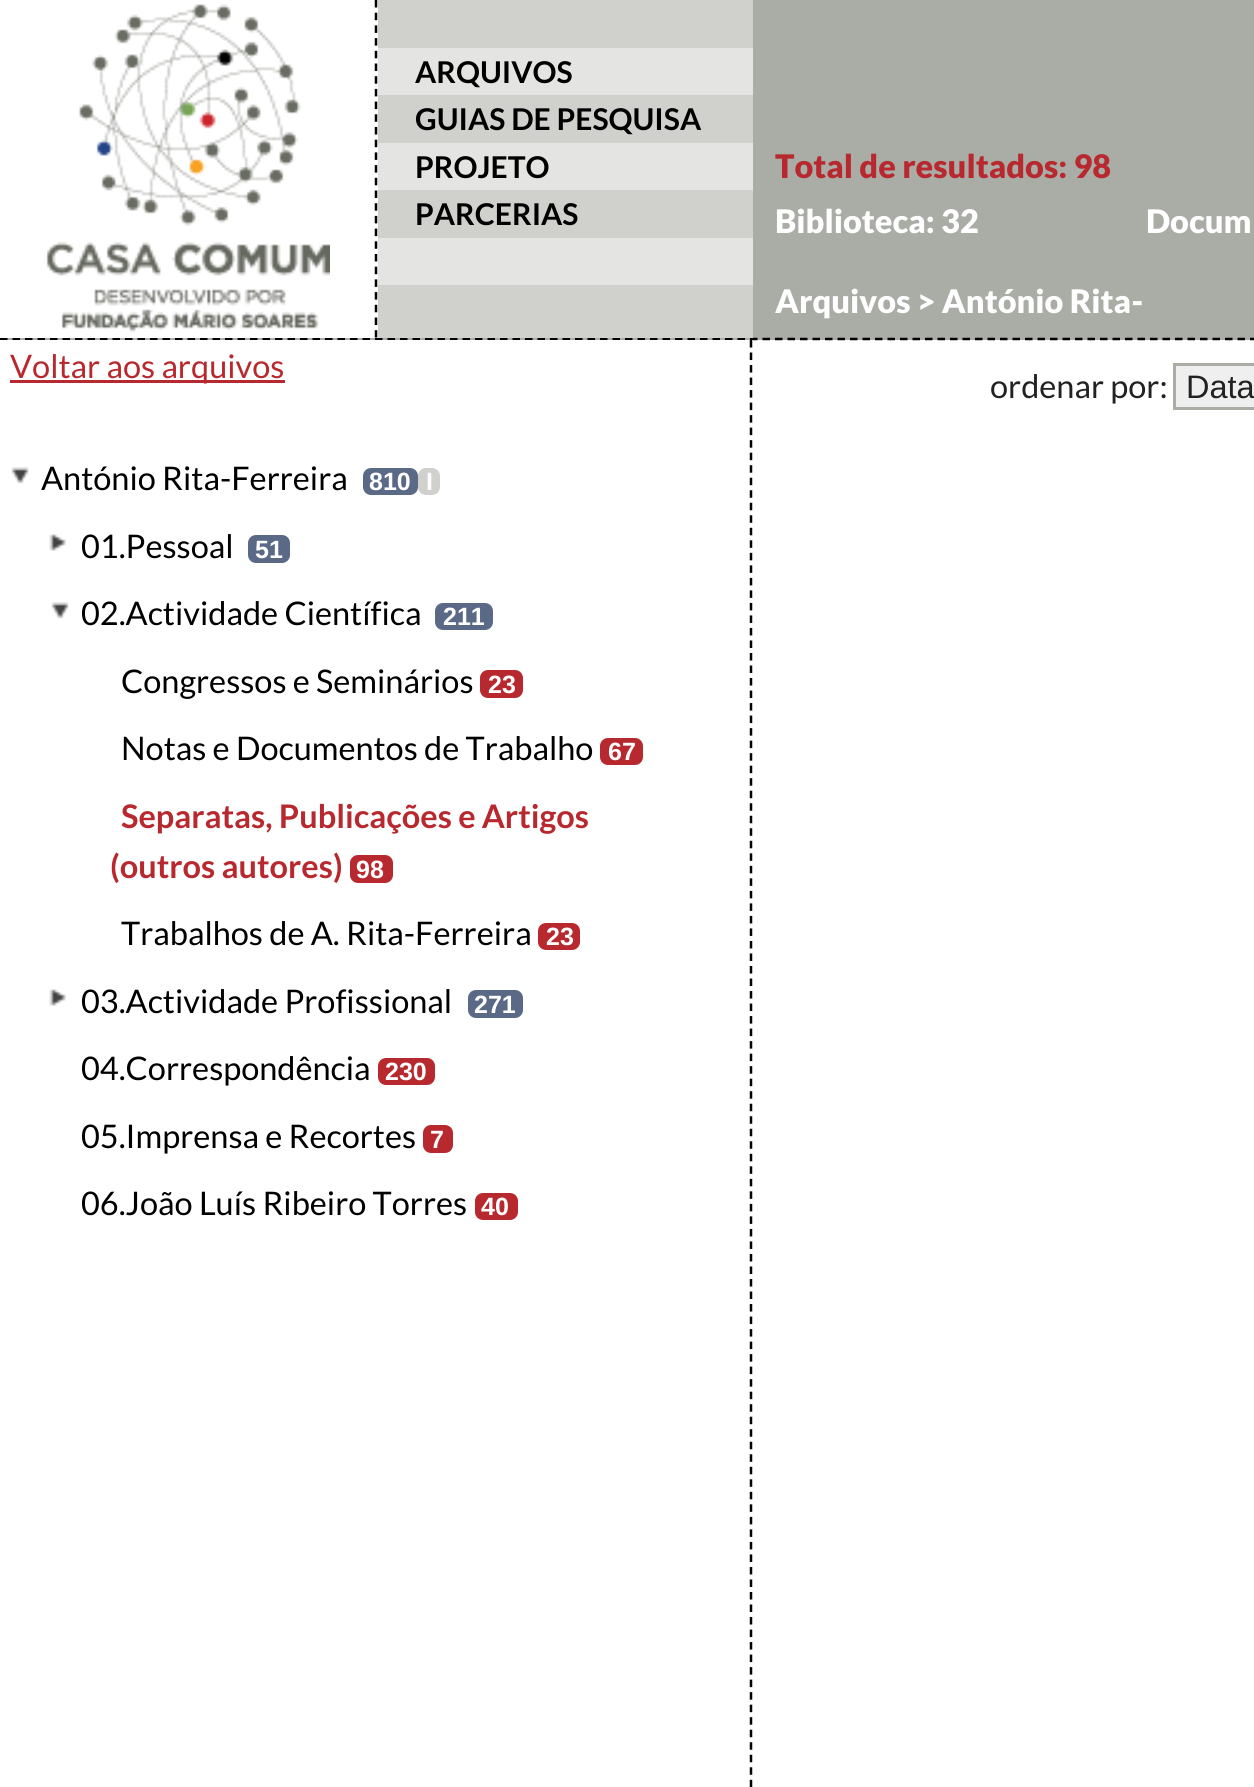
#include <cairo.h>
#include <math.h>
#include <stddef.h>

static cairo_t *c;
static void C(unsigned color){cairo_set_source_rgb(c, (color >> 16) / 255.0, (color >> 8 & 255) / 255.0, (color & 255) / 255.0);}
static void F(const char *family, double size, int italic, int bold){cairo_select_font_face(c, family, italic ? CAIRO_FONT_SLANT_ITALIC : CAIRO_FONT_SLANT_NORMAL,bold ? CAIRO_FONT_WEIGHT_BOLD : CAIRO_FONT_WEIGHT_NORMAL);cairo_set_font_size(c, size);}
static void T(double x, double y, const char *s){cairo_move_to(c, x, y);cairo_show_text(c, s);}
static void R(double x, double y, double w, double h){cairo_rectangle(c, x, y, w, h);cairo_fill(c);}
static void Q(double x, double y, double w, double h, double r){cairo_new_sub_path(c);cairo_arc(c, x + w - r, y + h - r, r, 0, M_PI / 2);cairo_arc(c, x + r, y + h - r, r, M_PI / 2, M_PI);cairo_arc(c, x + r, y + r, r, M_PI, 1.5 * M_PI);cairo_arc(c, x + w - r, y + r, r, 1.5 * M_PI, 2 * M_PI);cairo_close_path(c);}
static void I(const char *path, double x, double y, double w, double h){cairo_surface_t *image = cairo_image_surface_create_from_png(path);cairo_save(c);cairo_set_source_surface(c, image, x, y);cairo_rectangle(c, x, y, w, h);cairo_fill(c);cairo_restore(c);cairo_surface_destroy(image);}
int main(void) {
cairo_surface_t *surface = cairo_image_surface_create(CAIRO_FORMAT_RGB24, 1254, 1787);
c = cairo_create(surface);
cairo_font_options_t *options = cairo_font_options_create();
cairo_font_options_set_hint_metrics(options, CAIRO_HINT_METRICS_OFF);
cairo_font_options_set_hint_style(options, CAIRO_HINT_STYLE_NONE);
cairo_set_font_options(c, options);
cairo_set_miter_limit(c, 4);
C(0xffffff);
cairo_paint(c);
C(0xaaada6);
R(7,0,1247,340);
cairo_new_path(c);
cairo_move_to(c,0,339);
cairo_line_to(c,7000,339);
C(0x000000);
cairo_set_line_width(c,2.5);
cairo_set_dash(c,(double[]){7.5,5},2,0);
cairo_stroke(c);
C(0xffffff);
R(0,0,378,338);
cairo_new_path(c);
cairo_move_to(c,376,0);
cairo_line_to(c,376,337.5);
C(0x000000);
cairo_set_dash(c,(double[]){7.5,5.2},2,0);
cairo_stroke(c);
I("1.png",46,4,284,329);
C(0xd0d1cd);
R(378,0,375,338);
C(0xe4e5e2);
R(378,48,375,47);
F("Lato",30,0,1);
C(0x000000);
T(415,83,"ARQUIVOS");
T(415,130,"GUIAS DE PESQUISA");
C(0xe4e5e2);
R(378,143,375,47);
C(0x000000);
T(415,178,"PROJETO");
T(415,225,"PARCERIAS");
C(0xe4e5e2);
R(378,238,375,47);
F("Lato Black",32.5,0,0);
C(0xb8292f);
T(775,178,"Total de resultados: 98");
C(0xffffff);
T(775,233,"Biblioteca: 32");
T(1146,233,"Docum");
T(775,313,"Arquivos > António Rita-");
R(0,340,753,1);
cairo_new_path(c);
cairo_move_to(c,751,340);
cairo_line_to(c,751,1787.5);
C(0x000000);
cairo_set_dash(c,(double[]){7.5,5.02},2,0);
cairo_stroke(c);
C(0xb8292f);
R(10,380,275,3);
F("Lato",32.5,0,0);
T(10,378,"Voltar aos arquivos");
I("2.png",11,467,18,17);
C(0x000000);
T(41,490,"António Rita-Ferreira");
C(0x5a6986);
Q(363,468,55,27,8);
cairo_fill(c);
F("Liberation Sans",25,0,1);
C(0xffffff);
T(369,490,"810");
C(0xd0d1cd);
Q(418,468,22,27,8);
cairo_fill(c);
C(0xffffff);
T(426,490,"I");
I("3.png",49,534,18,17);
F("Lato",32.5,0,0);
C(0x000000);
T(81,558,"01.Pessoal");
C(0x5a6986);
Q(248,535,42,28,8);
cairo_fill(c);
F("Liberation Sans",25,0,1);
C(0xffffff);
T(255,558,"51");
I("2.png",51,602,18,17);
F("Lato",32.5,0,0);
C(0x000000);
T(81,625,"02.Actividade Científica");
C(0x5a6986);
Q(435,603,58,27,8);
cairo_fill(c);
F("Liberation Sans",25,0,1);
C(0xffffff);
T(443,625,"211");
F("Lato",32.5,0,0);
C(0x000000);
T(121,693,"Congressos e Seminários");
C(0xb8292f);
Q(480,670,43,28,8);
cairo_fill(c);
F("Liberation Sans",25,0,1);
C(0xffffff);
T(488,693,"23");
F("Lato",32.5,0,0);
C(0x000000);
T(121,760,"Notas e Documentos de Trabalho");
C(0xb8292f);
Q(600,738,43,27,8);
cairo_fill(c);
F("Liberation Sans",25,0,1);
C(0xffffff);
T(608,760,"67");
F("Lato",32.5,0,1);
C(0xb8292f);
T(121,828,"Separatas, Publicações e Artigos");
T(110,878,"(outros autores)");
Q(350,855,43,28,8);
cairo_fill(c);
F("Liberation Sans",25,0,1);
C(0xffffff);
T(356,878,"98");
F("Lato",32.5,0,0);
C(0x000000);
T(121,945,"Trabalhos de A. Rita-Ferreira");
C(0xb8292f);
Q(538,923,42,27,8);
cairo_fill(c);
F("Liberation Sans",25,0,1);
C(0xffffff);
T(546,945,"23");
I("3.png",49,989,18,17);
F("Lato",32.5,0,0);
C(0x000000);
T(81,1013,"03.Actividade Profissional");
C(0x5a6986);
Q(468,990,55,28,8);
cairo_fill(c);
F("Liberation Sans",25,0,1);
C(0xffffff);
T(474,1013,"271");
F("Lato",32.5,0,0);
C(0x000000);
T(81,1080,"04.Correspondência");
C(0xb8292f);
Q(378,1058,57,27,8);
cairo_fill(c);
F("Liberation Sans",25,0,1);
C(0xffffff);
T(385,1080,"230");
F("Lato",32.5,0,0);
C(0x000000);
T(81,1148,"05.Imprensa e Recortes");
C(0xb8292f);
Q(423,1125,30,28,8);
cairo_fill(c);
F("Liberation Sans",25,0,1);
C(0xffffff);
T(430,1148,"7");
F("Lato",32.5,0,0);
C(0x000000);
T(81,1215,"06.João Luís Ribeiro Torres");
C(0xb8292f);
Q(475,1193,43,27,8);
cairo_fill(c);
F("Liberation Sans",25,0,1);
C(0xffffff);
T(481,1215,"40");
F("Lato",32.5,0,0);
C(0x222222);
T(990,398,"ordenar por:");
C(0xefefef);
cairo_rectangle(c,1174.5,364.5,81,44);
cairo_fill_preserve(c);
C(0xaaada6);
cairo_set_line_width(c,3);
cairo_set_dash(c,NULL,0,0);
cairo_stroke(c);
F("Liberation Sans",32.5,0,0);
C(0x222222);
T(1186,398,"Data");
cairo_surface_write_to_png(surface, "o.png");
cairo_font_options_destroy(options);
cairo_destroy(c);
cairo_surface_destroy(surface);
return 0;
}
